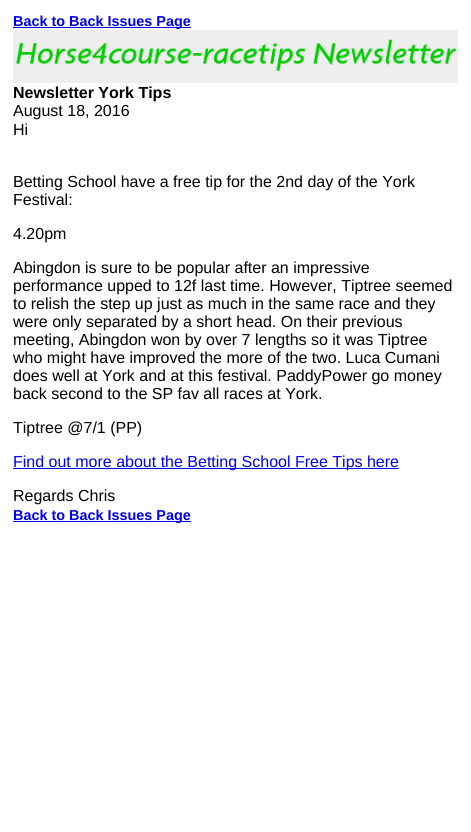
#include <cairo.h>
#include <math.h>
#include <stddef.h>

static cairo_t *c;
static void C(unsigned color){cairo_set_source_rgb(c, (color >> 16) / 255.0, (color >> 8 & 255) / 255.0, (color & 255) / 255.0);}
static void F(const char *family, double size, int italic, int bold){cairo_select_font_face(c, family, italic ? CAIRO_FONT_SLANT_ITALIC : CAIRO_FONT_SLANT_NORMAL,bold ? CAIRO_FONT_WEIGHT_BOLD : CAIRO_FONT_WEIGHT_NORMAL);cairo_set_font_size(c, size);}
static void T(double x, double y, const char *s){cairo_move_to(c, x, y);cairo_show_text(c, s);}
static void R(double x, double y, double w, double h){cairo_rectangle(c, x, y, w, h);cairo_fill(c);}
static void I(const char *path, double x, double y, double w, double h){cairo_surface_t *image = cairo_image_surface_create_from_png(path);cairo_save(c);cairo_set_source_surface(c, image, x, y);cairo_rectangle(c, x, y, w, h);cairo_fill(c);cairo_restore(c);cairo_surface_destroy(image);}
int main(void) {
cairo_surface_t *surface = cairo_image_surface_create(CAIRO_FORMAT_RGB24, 471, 832);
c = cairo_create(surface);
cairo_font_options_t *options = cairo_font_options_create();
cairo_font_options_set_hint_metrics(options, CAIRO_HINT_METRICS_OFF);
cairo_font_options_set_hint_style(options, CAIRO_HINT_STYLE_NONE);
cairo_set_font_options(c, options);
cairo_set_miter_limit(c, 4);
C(0xffffff);
cairo_paint(c);
C(0x0000ee);
R(13,27,178,1);
F("Liberation Sans",14.4,0,1);
T(13,26,"Back to Back Issues Page");
I("1.png",13,30,445,53);
F("Liberation Sans",16,0,1);
C(0x000000);
T(13,98,"Newsletter York Tips");
F("Liberation Sans",16,0,0);
T(13,116,"August 18, 2016");
T(13,135,"Hi");
T(13,187,"Betting School have a free tip for the 2nd day of the York");
T(13,205,"Festival:");
T(13,239,"4.20pm");
T(13,273,"Abingdon is sure to be popular after an impressive");
T(13,291,"performance upped to 12f last time. However, Tiptree seemed");
T(13,309,"to relish the step up just as much in the same race and they");
T(13,327,"were only separated by a short head. On their previous");
T(13,345,"meeting, Abingdon won by over 7 lengths so it was Tiptree");
T(13,363,"who might have improved the more of the two. Luca Cumani");
T(13,381,"does well at York and at this festival. PaddyPower go money");
T(13,399,"back second to the SP fav all races at York.");
T(13,433,"Tiptree @7/1 (PP)");
C(0x0000ee);
R(13,468,386,1);
T(13,467,"Find out more about the Betting School Free Tips here");
C(0x000000);
T(13,501,"Regards Chris");
C(0x0000ee);
R(13,521,178,1);
F("Liberation Sans",14.4,0,1);
T(13,520,"Back to Back Issues Page");
cairo_surface_write_to_png(surface, "o.png");
cairo_font_options_destroy(options);
cairo_destroy(c);
cairo_surface_destroy(surface);
return 0;
}
